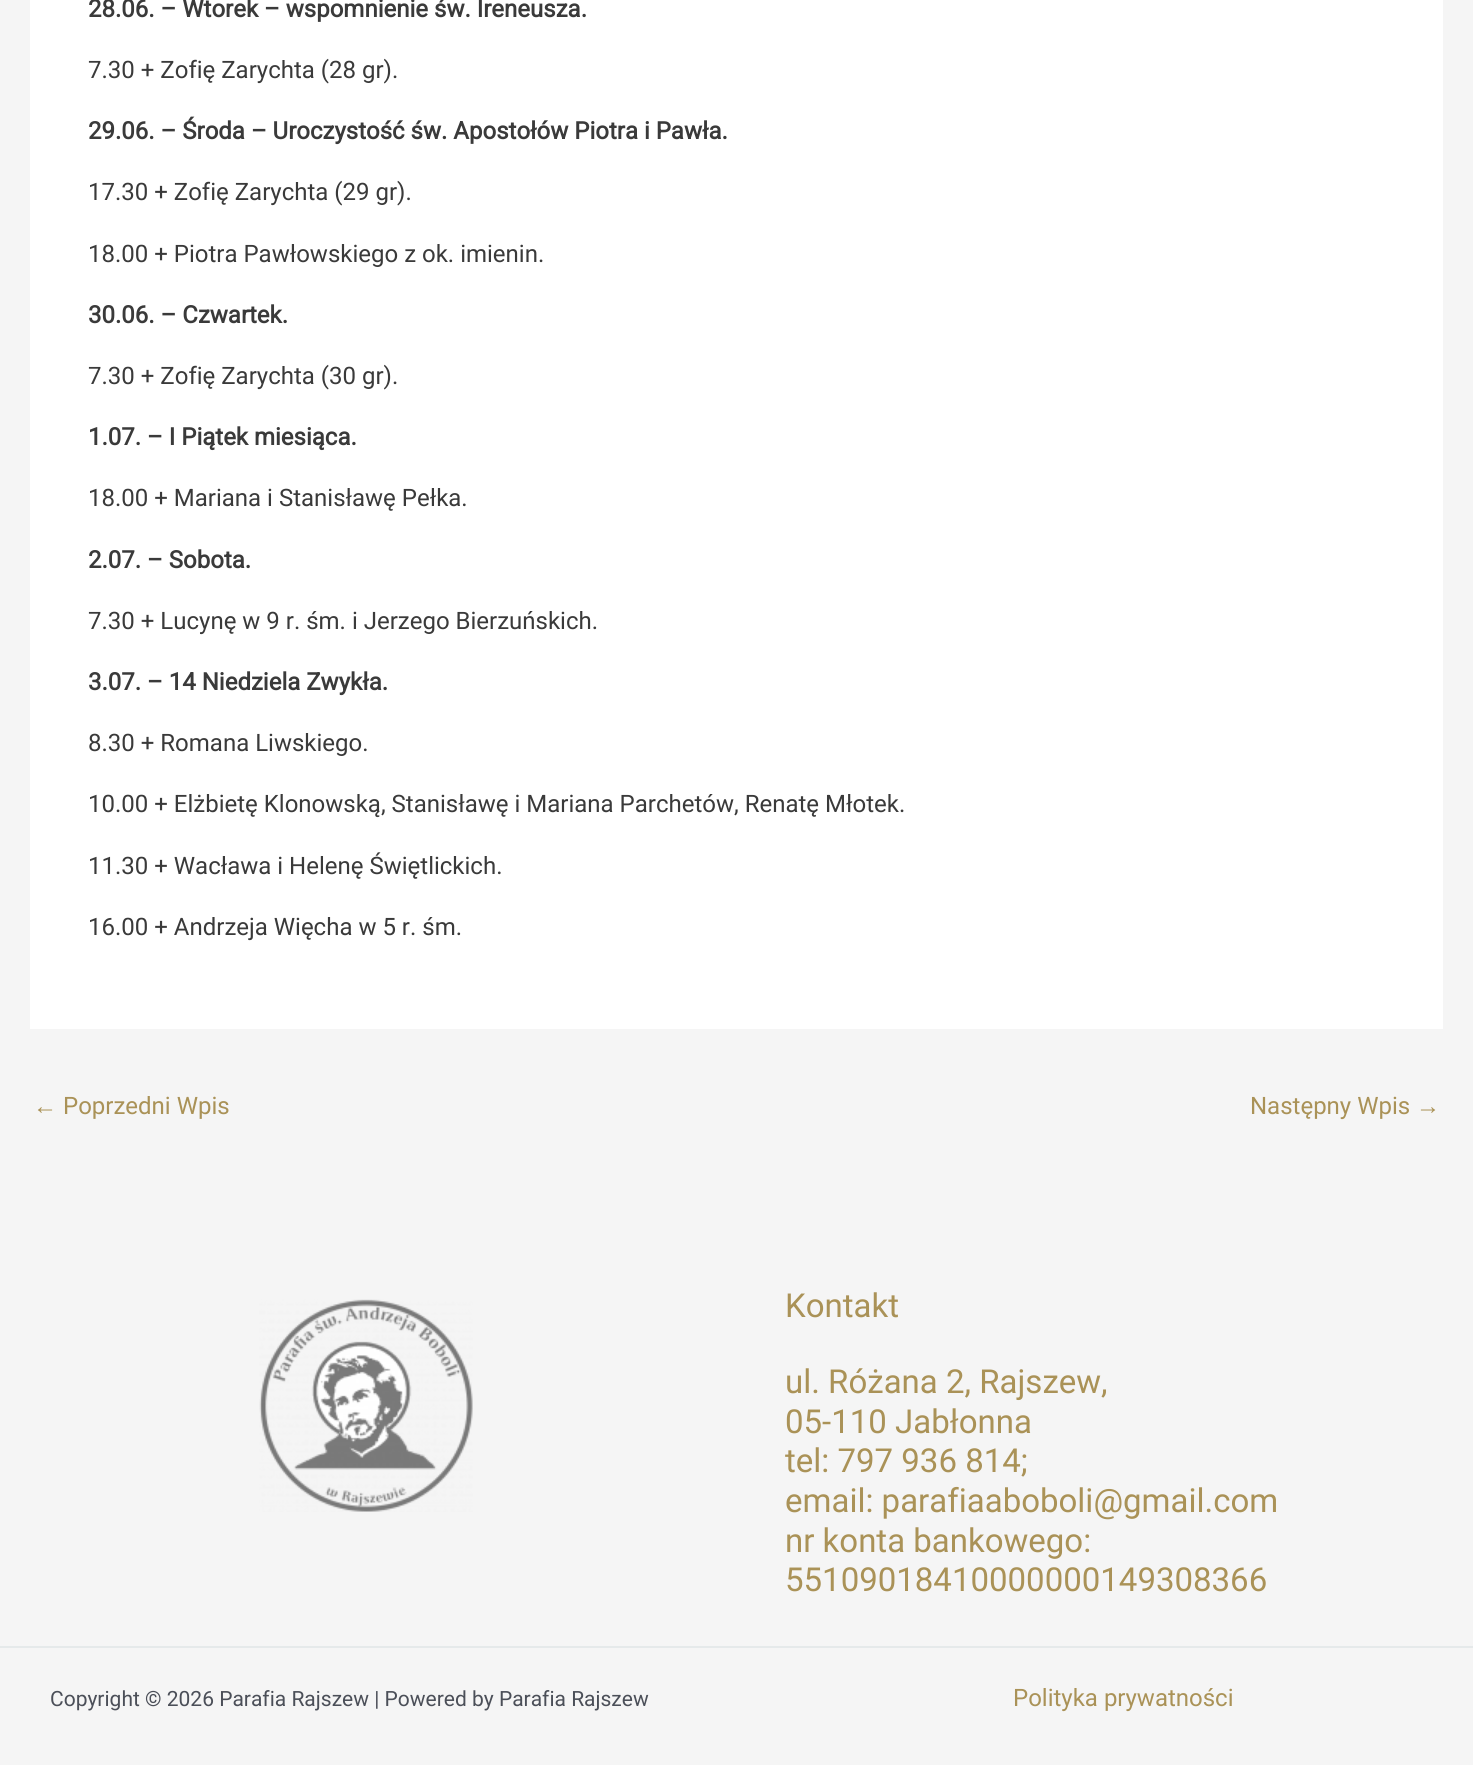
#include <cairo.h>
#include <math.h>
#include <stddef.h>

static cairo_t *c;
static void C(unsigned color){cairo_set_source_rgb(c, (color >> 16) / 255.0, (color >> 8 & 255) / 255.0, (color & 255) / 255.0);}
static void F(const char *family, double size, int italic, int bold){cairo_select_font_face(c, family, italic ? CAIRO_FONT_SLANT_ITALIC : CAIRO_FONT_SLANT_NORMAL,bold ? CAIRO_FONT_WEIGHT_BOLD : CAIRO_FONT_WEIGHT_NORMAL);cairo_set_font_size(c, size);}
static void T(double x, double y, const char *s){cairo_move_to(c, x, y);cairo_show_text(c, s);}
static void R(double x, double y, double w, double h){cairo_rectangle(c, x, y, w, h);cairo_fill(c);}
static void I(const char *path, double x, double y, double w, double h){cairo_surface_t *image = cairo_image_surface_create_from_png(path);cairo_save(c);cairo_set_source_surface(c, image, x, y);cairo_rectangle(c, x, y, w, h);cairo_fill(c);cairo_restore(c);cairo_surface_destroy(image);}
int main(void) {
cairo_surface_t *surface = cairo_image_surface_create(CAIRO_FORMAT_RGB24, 1473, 1765);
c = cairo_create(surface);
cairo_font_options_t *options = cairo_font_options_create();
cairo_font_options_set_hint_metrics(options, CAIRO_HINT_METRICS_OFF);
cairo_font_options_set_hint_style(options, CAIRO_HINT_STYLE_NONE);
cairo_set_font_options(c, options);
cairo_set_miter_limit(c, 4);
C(0xf5f5f5);
cairo_paint(c);
C(0xffffff);
R(30,0,1413,1029);
F("Roboto",24,0,1);
C(0x3a3a3a);
T(88,17,"28.06. – Wtorek – wspomnienie św. Ireneusza.");
F("Roboto",24,0,0);
T(88,78,"7.30 + Zofię Zarychta (28 gr).");
F("Roboto",24,0,1);
T(88,139,"29.06. – Środa – Uroczystość św. Apostołów Piotra i Pawła.");
F("Roboto",24,0,0);
T(88,200,"17.30 + Zofię Zarychta (29 gr).");
T(88,262,"18.00 + Piotra Pawłowskiego z ok. imienin.");
F("Roboto",24,0,1);
T(88,323,"30.06. – Czwartek.");
F("Roboto",24,0,0);
T(88,384,"7.30 + Zofię Zarychta (30 gr).");
F("Roboto",24,0,1);
T(88,445,"1.07. – I Piątek miesiąca.");
F("Roboto",24,0,0);
T(88,506,"18.00 + Mariana i Stanisławę Pełka.");
F("Roboto",24,0,1);
T(88,568,"2.07. – Sobota.");
F("Roboto",24,0,0);
T(88,629,"7.30 + Lucynę w 9 r. śm. i Jerzego Bierzuńskich.");
F("Roboto",24,0,1);
T(88,690,"3.07. – 14 Niedziela Zwykła.");
F("Roboto",24,0,0);
T(88,751,"8.30 + Romana Liwskiego.");
T(88,812,"10.00 + Elżbietę Klonowską, Stanisławę i Mariana Parchetów, Renatę Młotek.");
T(88,874,"11.30 + Wacława i Helenę Świętlickich.");
T(88,935,"16.00 + Andrzeja Więcha w 5 r. śm.");
F("Liberation Sans",24,0,0);
C(0xaa9257);
T(33,1114,"←");
F("Roboto",24,0,0);
T(63,1114,"Poprzedni Wpis");
T(1250,1114,"Następny Wpis");
F("Liberation Sans",24,0,0);
T(1416,1114,"→");
I("1.png",259,1299,214,213);
F("Roboto",33,0,0);
T(785,1317,"Kontakt");
T(785,1393,"ul. Różana 2, Rajszew,");
T(785,1433,"05-110 Jabłonna");
T(785,1472,"tel: 797 936 814;");
T(785,1512,"email: parafiaaboboli@gmail.com");
T(785,1552,"nr konta bankowego:");
T(785,1591,"55109018410000000149308366");
C(0xe5e9ea);
R(0,1646,1473,2);
F("Roboto",21,0,0);
C(0x4b4f58);
T(50,1706,"Copyright © 2026 Parafia Rajszew | Powered by Parafia Rajszew");
F("Roboto",24,0,0);
C(0xaa9257);
T(1013,1706,"Polityka prywatności");
cairo_surface_write_to_png(surface, "o.png");
cairo_font_options_destroy(options);
cairo_destroy(c);
cairo_surface_destroy(surface);
return 0;
}
